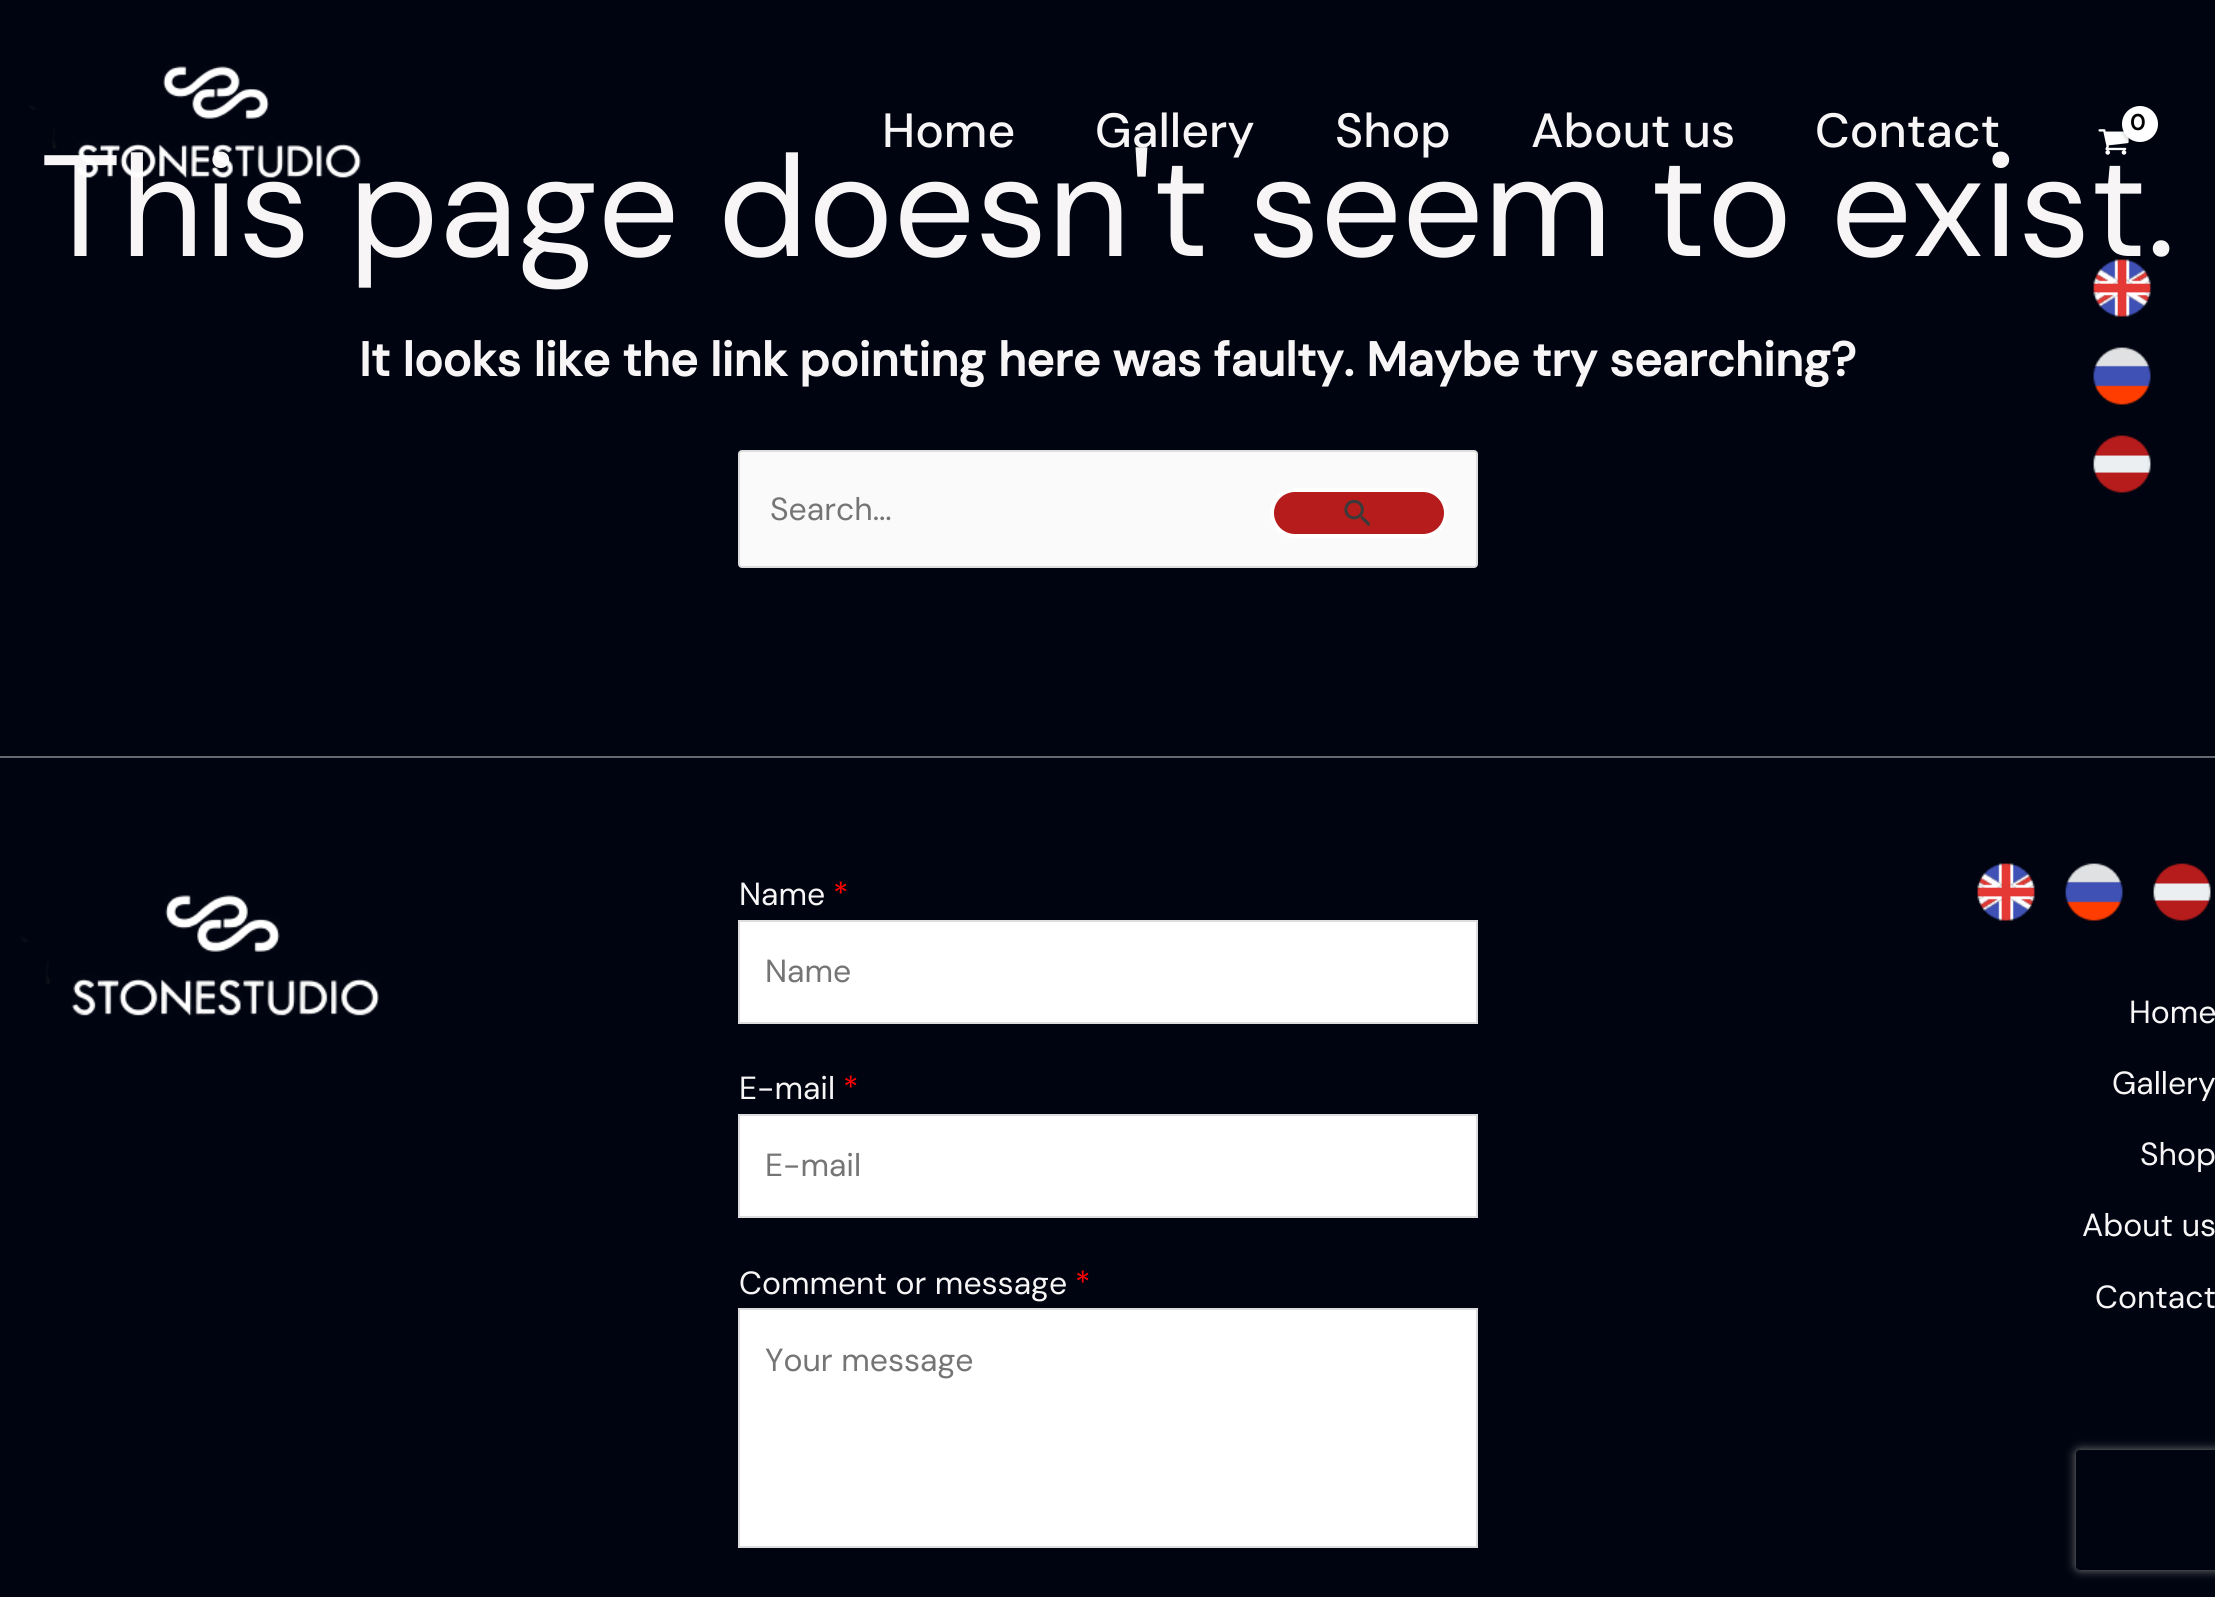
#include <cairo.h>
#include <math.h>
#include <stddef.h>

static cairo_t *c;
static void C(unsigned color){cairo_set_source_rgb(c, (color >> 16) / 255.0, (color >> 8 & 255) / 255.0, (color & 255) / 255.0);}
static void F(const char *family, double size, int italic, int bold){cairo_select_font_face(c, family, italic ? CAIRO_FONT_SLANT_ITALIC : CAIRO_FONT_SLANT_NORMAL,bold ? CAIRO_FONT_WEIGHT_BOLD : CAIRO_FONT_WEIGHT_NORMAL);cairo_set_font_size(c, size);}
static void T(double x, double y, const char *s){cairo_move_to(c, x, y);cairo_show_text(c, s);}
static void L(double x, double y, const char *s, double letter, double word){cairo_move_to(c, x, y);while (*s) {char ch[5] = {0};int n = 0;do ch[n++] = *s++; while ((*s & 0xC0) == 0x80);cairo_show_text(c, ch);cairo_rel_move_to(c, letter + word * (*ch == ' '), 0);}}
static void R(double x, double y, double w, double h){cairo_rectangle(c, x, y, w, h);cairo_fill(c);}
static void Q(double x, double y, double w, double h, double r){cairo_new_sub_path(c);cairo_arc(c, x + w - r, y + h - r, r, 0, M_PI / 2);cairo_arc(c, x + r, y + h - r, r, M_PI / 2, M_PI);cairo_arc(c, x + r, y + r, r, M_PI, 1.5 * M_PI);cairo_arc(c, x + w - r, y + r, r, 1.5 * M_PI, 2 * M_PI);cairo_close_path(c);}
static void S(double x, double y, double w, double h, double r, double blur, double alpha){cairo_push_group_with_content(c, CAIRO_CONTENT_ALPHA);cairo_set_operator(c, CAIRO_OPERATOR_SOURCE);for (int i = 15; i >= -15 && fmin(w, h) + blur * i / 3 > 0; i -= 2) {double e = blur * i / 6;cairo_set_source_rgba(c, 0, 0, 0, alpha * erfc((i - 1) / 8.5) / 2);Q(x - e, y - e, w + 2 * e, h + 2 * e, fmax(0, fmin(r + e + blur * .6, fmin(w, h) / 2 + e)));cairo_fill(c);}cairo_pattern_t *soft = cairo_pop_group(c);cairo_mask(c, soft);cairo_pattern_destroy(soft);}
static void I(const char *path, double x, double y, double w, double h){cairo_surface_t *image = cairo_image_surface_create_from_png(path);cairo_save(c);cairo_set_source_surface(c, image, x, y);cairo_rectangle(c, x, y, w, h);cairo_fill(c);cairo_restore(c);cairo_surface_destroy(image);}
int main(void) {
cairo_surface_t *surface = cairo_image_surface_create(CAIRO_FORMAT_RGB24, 2215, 1597);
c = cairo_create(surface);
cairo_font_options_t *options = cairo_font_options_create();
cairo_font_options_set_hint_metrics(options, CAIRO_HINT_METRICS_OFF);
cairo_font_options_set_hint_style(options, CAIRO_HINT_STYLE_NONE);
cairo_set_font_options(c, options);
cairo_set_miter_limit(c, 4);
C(0x000410);
cairo_paint(c);
F("DM Sans",144,0,0);
C(0xf7f5f5);
T(40,256,"This page doesn't seem to exist.");
I("1.png",29,66,332,112);
F("DM Sans Medium",48,0,0);
T(882,147,"Home");
T(1095,147,"Gallery");
T(1335,147,"Shop");
T(1531,147,"About us");
T(1815,147,"Contact");
I("2.png",2098,129,31,26);
C(0x000000);
S(2124,108,36,36,18,3,.3);
C(0xffffff);
cairo_arc(c,2140,124,18,0,2 * M_PI);
cairo_fill(c);
F("DM Sans",22,0,1);
C(0x000000);
L(2130,130,"0",-1,0);
I("3.png",2093,259,58,58);
I("4.png",2093,347,58,58);
I("5.png",2093,435,58,58);
F("DM Sans",48,0,1);
C(0xf7f5f5);
T(359,376,"It looks like the link pointing here was faulty. Maybe try searching?");
C(0xfafafa);
Q(739,451,738,116,3);
cairo_fill_preserve(c);
C(0xdddddd);
cairo_stroke(c);
F("DM Sans",32,0,0);
C(0x757575);
T(770,520,"Search...");
C(0xb71c1c);
Q(1272,490,174,46,23);
cairo_fill_preserve(c);
C(0xffffff);
cairo_set_line_width(c,4);
cairo_stroke(c);
I("6.png",1344,499,26,27);
C(0x666870);
R(0,756,2215,2);
I("7.png",21,895,358,121);
C(0xf7f5f5);
T(739,905,"Name");
C(0xff0000);
T(833,905,"*");
C(0xffffff);
cairo_rectangle(c,739,921,738,102);
cairo_fill_preserve(c);
C(0xdddddd);
cairo_set_line_width(c,2);
cairo_stroke(c);
C(0x757575);
T(765,982,"Name");
C(0xf7f5f5);
T(739,1099,"E-mail");
C(0xff0000);
T(843,1099,"*");
C(0xffffff);
cairo_rectangle(c,739,1115,738,102);
cairo_fill_preserve(c);
C(0xdddddd);
cairo_stroke(c);
C(0x757575);
T(765,1176,"E-mail");
C(0xf7f5f5);
T(739,1294,"Comment or message");
C(0xff0000);
T(1075,1294,"*");
C(0xffffff);
cairo_rectangle(c,739,1309,738,238);
cairo_fill_preserve(c);
C(0xdddddd);
cairo_stroke(c);
C(0x757575);
T(765,1371,"Your message");
I("3.png",1977,863,58,58);
I("8.png",2065,863,58,58);
I("9.png",2153,863,58,58);
C(0xf7f5f5);
T(2129,1023,"Home");
T(2112,1094,"Gallery");
T(2140,1165,"Shop");
T(2082,1236,"About us");
T(2095,1308,"Contact");
cairo_save(c);
cairo_set_fill_rule(c,CAIRO_FILL_RULE_EVEN_ODD);
cairo_new_path(c);
cairo_move_to(c,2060,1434);
cairo_line_to(c,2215,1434);
cairo_line_to(c,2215,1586);
cairo_line_to(c,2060,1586);
cairo_close_path(c);
cairo_move_to(c,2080,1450);
cairo_line_to(c,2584,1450);
cairo_curve_to(c,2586,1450,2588,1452,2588,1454);
cairo_line_to(c,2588,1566);
cairo_curve_to(c,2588,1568,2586,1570,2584,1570);
cairo_line_to(c,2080,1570);
cairo_curve_to(c,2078,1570,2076,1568,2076,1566);
cairo_line_to(c,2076,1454);
cairo_curve_to(c,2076,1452,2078,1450,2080,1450);
cairo_close_path(c);
cairo_clip(c);
C(0x808080);
S(2076,1450,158,120,4,5,1);
cairo_restore(c);
cairo_surface_write_to_png(surface, "o.png");
cairo_font_options_destroy(options);
cairo_destroy(c);
cairo_surface_destroy(surface);
return 0;
}
